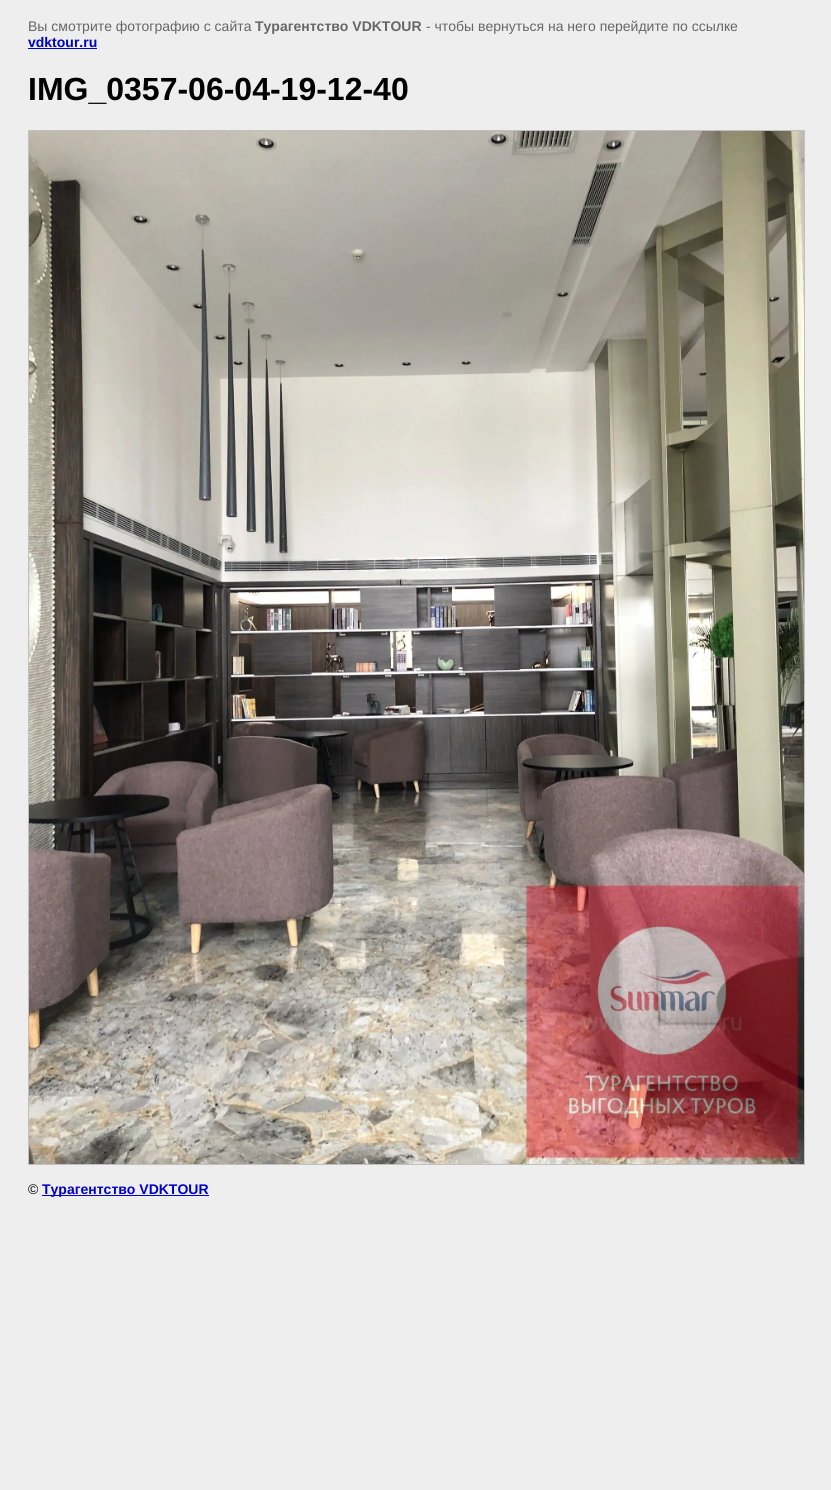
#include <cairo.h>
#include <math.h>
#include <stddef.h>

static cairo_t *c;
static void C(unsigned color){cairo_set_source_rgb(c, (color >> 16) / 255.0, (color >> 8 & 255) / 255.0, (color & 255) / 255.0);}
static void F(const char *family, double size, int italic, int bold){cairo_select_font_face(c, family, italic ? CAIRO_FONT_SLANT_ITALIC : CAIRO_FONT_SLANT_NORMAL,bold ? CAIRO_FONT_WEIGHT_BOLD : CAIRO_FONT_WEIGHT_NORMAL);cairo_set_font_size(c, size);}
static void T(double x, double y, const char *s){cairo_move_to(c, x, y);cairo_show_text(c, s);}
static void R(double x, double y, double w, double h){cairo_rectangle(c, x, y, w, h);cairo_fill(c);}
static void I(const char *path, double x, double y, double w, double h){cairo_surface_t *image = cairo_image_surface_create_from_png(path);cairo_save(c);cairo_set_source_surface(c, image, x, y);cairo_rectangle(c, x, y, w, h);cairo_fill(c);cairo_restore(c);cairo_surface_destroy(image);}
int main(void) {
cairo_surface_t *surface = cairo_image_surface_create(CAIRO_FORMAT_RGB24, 831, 1490);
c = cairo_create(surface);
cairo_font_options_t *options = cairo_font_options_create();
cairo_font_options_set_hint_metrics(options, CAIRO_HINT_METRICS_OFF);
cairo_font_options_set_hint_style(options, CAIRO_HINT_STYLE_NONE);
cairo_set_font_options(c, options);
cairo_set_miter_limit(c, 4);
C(0xeeeeee);
cairo_paint(c);
F("Liberation Sans",14,0,0);
C(0x666666);
T(28,31,"Вы смотрите фотографию с сайта");
F("Liberation Sans",14,0,1);
T(255,31,"Турагентство VDKTOUR");
F("Liberation Sans",14,0,0);
T(426,31,"- чтобы вернуться на него перейдите по ссылке");
F("Liberation Sans",14,0,1);
C(0x0000cc);
T(28,47,"vdktour.ru");
R(28,48,69,1);
F("Liberation Sans",32,0,1);
C(0x000000);
T(28,100,"IMG_0357-06-04-19-12-40");
cairo_rectangle(c,28.5,130.5,776,1034);
C(0xc0c0c0);
cairo_set_line_width(c,1);
cairo_stroke(c);
I("1.png",29,131,775,1033);
F("Liberation Sans",14,0,0);
C(0x000000);
T(28,1194,"©");
C(0x0000cc);
R(42,1195,167,1);
F("Liberation Sans",14,0,1);
T(42,1194,"Турагентство VDKTOUR");
cairo_surface_write_to_png(surface, "o.png");
cairo_font_options_destroy(options);
cairo_destroy(c);
cairo_surface_destroy(surface);
return 0;
}
